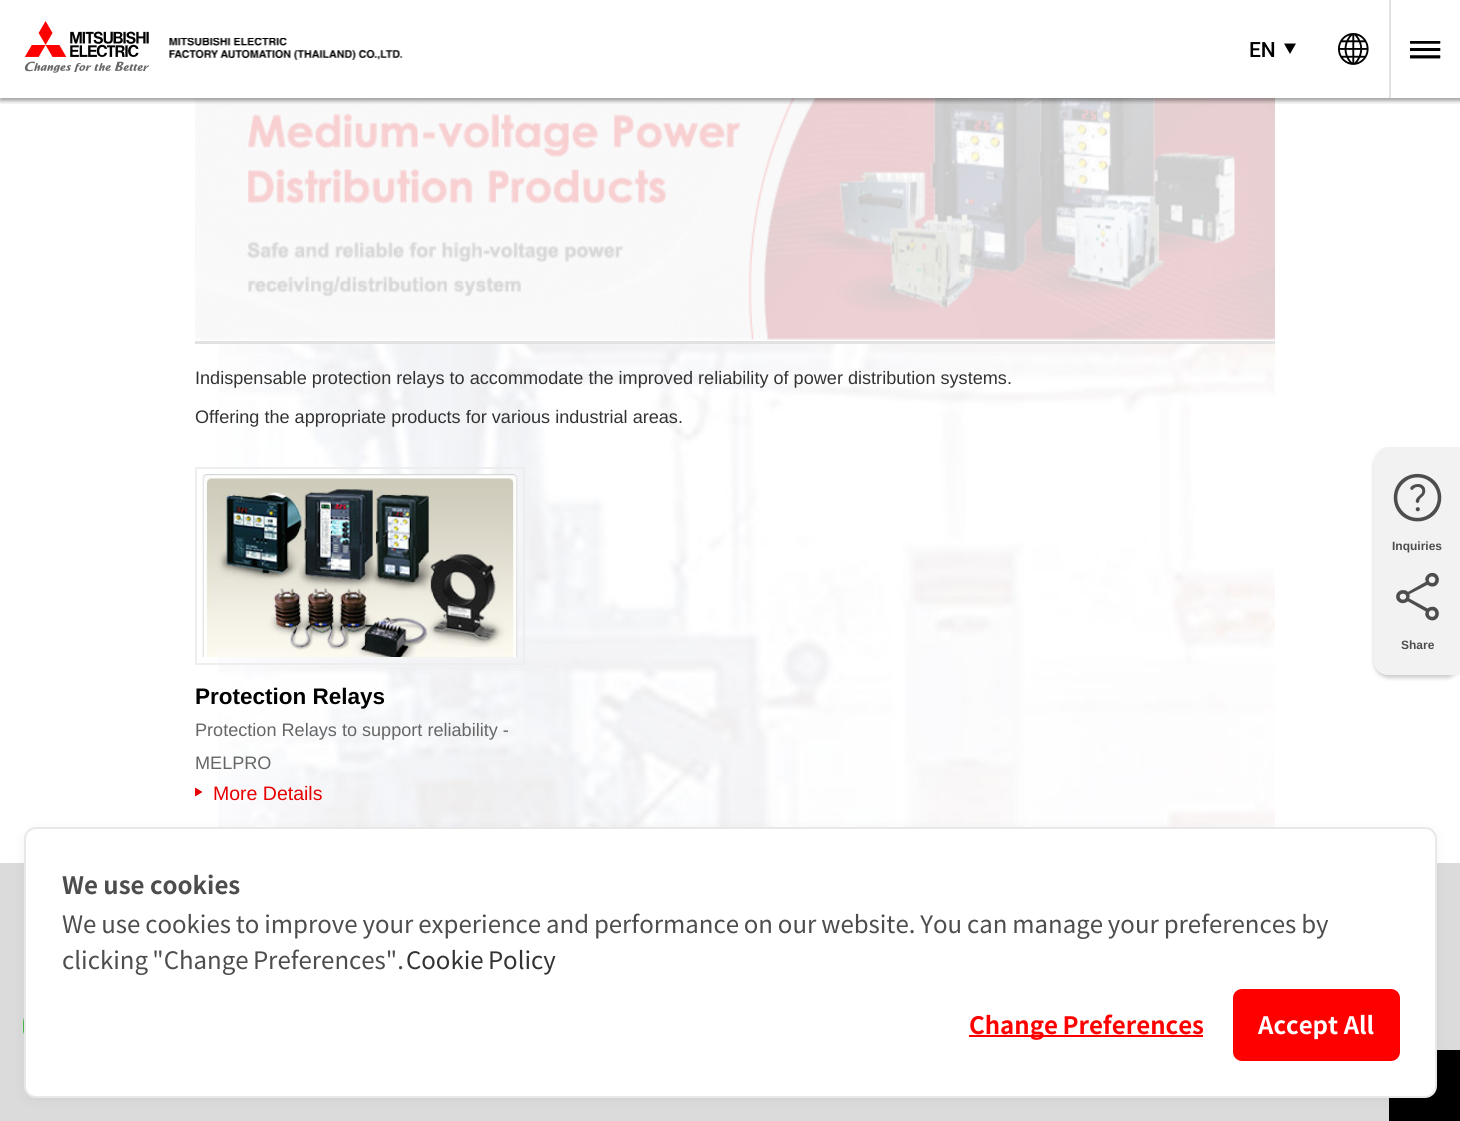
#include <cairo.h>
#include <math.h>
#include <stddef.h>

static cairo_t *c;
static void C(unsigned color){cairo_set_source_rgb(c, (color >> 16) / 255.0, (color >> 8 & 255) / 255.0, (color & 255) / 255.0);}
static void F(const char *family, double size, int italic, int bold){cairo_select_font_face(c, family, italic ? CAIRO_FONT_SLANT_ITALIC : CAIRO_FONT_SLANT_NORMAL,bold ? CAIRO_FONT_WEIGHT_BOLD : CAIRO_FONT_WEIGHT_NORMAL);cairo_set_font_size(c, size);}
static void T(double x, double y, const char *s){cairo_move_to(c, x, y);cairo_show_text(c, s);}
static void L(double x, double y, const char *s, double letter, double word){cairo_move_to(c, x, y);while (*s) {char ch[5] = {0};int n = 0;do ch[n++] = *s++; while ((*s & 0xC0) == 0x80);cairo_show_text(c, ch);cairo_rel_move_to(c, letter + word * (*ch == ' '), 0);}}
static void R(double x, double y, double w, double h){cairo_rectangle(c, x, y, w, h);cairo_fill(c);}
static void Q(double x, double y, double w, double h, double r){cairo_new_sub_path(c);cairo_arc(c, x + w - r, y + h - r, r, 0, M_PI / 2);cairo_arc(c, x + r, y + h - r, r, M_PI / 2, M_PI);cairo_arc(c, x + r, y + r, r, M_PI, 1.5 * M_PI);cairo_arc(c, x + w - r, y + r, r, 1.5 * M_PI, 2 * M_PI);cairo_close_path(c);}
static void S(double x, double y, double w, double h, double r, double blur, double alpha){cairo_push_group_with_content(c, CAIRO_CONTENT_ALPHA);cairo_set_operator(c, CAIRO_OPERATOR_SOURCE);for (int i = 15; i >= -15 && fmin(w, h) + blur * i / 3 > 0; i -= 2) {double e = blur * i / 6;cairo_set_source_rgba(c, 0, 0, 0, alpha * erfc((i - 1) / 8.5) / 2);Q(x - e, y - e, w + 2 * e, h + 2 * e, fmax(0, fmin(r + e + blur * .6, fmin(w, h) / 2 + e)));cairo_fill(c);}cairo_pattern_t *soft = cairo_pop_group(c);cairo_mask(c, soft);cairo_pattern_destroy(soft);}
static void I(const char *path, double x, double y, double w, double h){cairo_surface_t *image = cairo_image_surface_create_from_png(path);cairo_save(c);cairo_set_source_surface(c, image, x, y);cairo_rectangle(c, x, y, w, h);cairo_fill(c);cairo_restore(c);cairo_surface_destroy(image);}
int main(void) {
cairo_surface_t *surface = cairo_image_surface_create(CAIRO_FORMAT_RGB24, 1460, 1121);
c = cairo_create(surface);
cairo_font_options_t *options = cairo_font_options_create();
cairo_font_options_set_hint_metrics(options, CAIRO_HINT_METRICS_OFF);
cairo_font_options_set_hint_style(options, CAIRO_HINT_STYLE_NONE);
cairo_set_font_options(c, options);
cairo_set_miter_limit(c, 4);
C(0xffffff);
cairo_paint(c);
I("5.png",195,98,1080,242);
C(0x000000);
S(0,3,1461,98,0,2,.2);
S(0,3,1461,98,0,2,.2);
C(0xffffff);
R(0,0,1460,98);
I("1.png",24,21,125,52);
I("2.png",169,38,234,22);
F("Roboto Medium",21,0,0);
C(0x000000);
T(1249,57,"EN");
cairo_new_path(c);
cairo_move_to(c,1284,43.5);
cairo_line_to(c,1296,43.5);
cairo_line_to(c,1290,54);
cairo_close_path(c);
cairo_fill(c);
I("3.png",1338,33,31,32);
C(0xe1e1e1);
R(1389,0,2,98);
I("4.png",1410,41,31,18);
I("6.png",218,344,1057,483);
C(0xe2e2e2);
R(195,341,1080,3);
F("Liberation Sans",18.1,0,0);
C(0x333333);
T(195,384,"Indispensable protection relays to accommodate the improved reliability of power distribution systems.");
T(195,423,"Offering the appropriate products for various industrial areas.");
cairo_rectangle(c,196,468,328,196);
C(0xeeeeee);
cairo_stroke(c);
I("7.png",202,474,316,183);
F("Liberation Sans",22.5,0,1);
C(0x000000);
T(195,704,"Protection Relays");
F("Liberation Sans",18.1,0,0);
C(0x666666);
T(195,736,"Protection Relays to support reliability -");
T(195,769,"MELPRO");
C(0xe60000);
cairo_new_path(c);
cairo_move_to(c,195,796.5);
cairo_line_to(c,195,787.5);
cairo_line_to(c,202.5,792);
cairo_close_path(c);
cairo_fill(c);
F("Liberation Sans",19.5,0,0);
T(213,800,"More Details");
cairo_save(c);
cairo_set_fill_rule(c,CAIRO_FILL_RULE_EVEN_ODD);
cairo_new_path(c);
cairo_move_to(c,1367,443);
cairo_line_to(c,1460,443);
cairo_line_to(c,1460,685);
cairo_line_to(c,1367,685);
cairo_close_path(c);
cairo_move_to(c,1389,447);
cairo_line_to(c,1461,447);
cairo_line_to(c,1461,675);
cairo_line_to(c,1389,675);
cairo_curve_to(c,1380.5,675,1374,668.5,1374,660);
cairo_line_to(c,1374,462);
cairo_curve_to(c,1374,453.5,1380.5,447,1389,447);
cairo_close_path(c);
cairo_clip(c);
C(0x000000);
S(1374,450,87,228,15,2,.2);
cairo_restore(c);
cairo_set_source_rgba(c,0.949,0.949,0.949,0.95);
cairo_new_path(c);
cairo_move_to(c,1389,447);
cairo_line_to(c,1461,447);
cairo_line_to(c,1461,675);
cairo_line_to(c,1389,675);
cairo_curve_to(c,1380.5,675,1374,668.5,1374,660);
cairo_line_to(c,1374,462);
cairo_curve_to(c,1374,453.5,1380.5,447,1389,447);
cairo_close_path(c);
cairo_fill(c);
I("8.png",1393,473,49,49);
F("Liberation Sans",12,0,1);
C(0x4d4d4d);
T(1392,550,"Inquiries");
I("9.png",1396,572,43,49);
T(1401,649,"Share");
C(0xdbdbdb);
R(0,863,1460,258);
I("10.png",23,1018,1,16);
C(0x000000);
R(1389,1050,71,71);
C(0x000000);
S(24,830,1413,271,12,6,.05);
C(0xffffff);
Q(25,828,1411,269,11);
cairo_fill_preserve(c);
C(0xe8e8e8);
cairo_stroke(c);
F("Noto Sans JP",24,0,1);
C(0x4d4d4d);
T(62,894,"We use cookies");
F("Noto Sans JP",24,0,0);
L(62,933,"We use cookies to improve your experience and performance on our website. You can manage your preferences by",0,-.5);
L(62,969,"clicking \"Change Preferences\".",0,-1);
C(0x333333);
L(406,969,"Cookie Policy",0,-1);
C(0xff0000);
R(969,1035,234,2);
F("Noto Sans JP",24,0,1);
L(969,1034,"Change Preferences",0,-1);
Q(1233,989,167,72,9);
cairo_fill(c);
C(0xffffff);
T(1258,1034,"Accept All");
cairo_surface_write_to_png(surface, "o.png");
cairo_font_options_destroy(options);
cairo_destroy(c);
cairo_surface_destroy(surface);
return 0;
}
